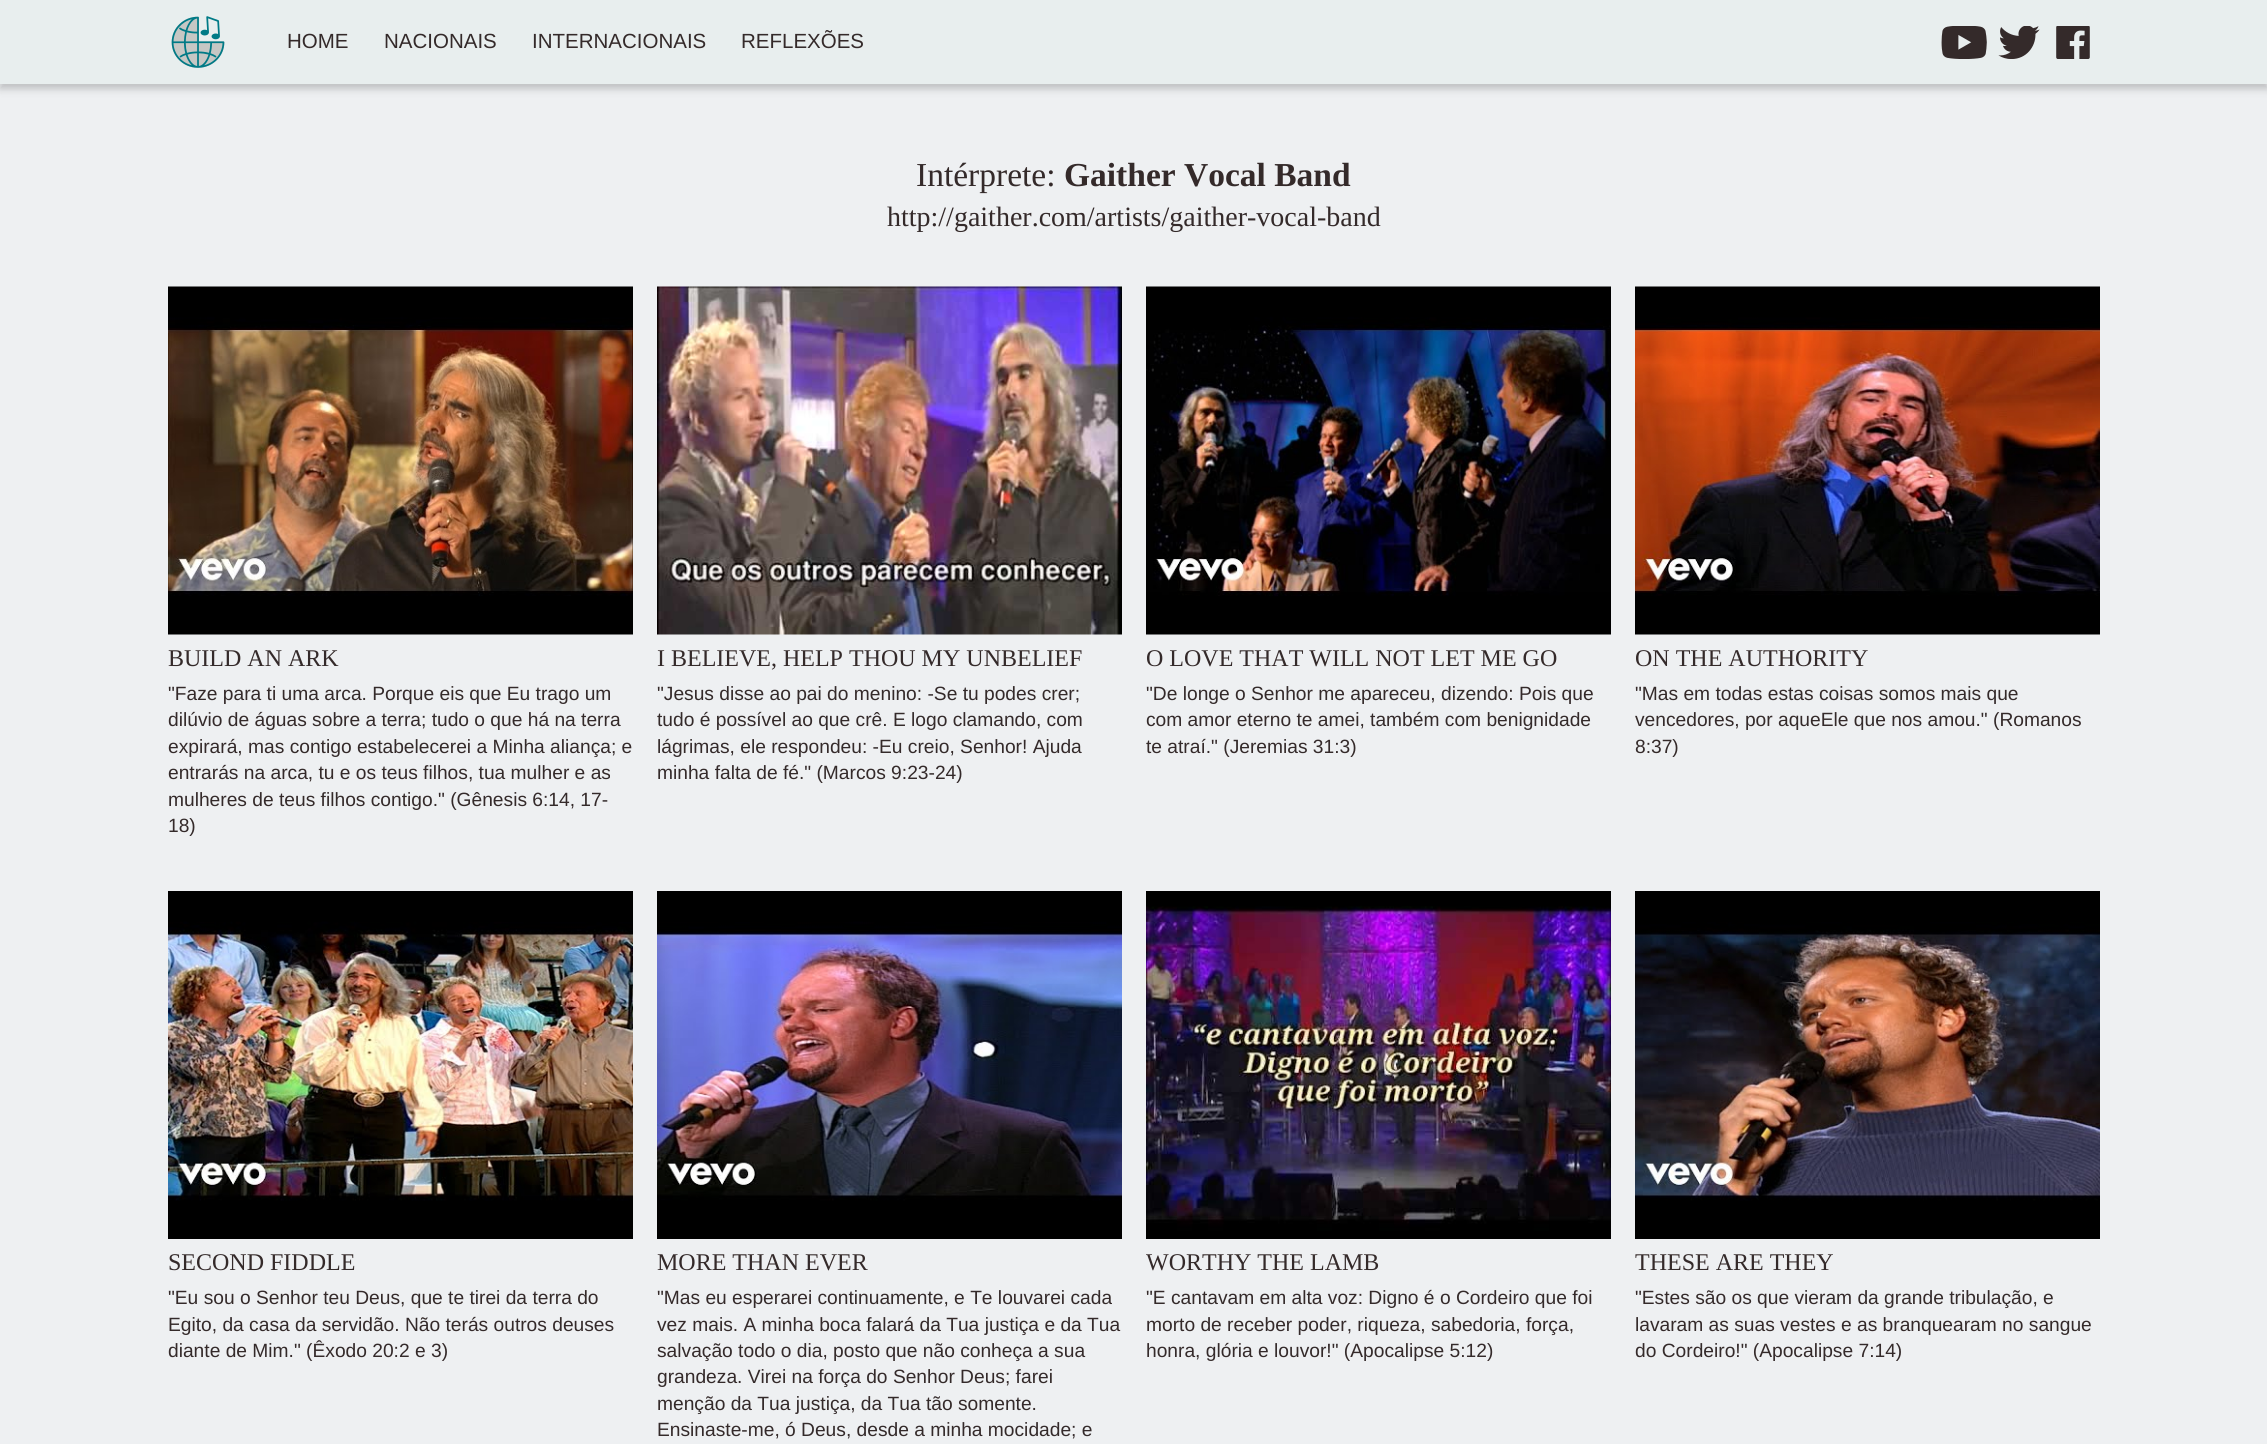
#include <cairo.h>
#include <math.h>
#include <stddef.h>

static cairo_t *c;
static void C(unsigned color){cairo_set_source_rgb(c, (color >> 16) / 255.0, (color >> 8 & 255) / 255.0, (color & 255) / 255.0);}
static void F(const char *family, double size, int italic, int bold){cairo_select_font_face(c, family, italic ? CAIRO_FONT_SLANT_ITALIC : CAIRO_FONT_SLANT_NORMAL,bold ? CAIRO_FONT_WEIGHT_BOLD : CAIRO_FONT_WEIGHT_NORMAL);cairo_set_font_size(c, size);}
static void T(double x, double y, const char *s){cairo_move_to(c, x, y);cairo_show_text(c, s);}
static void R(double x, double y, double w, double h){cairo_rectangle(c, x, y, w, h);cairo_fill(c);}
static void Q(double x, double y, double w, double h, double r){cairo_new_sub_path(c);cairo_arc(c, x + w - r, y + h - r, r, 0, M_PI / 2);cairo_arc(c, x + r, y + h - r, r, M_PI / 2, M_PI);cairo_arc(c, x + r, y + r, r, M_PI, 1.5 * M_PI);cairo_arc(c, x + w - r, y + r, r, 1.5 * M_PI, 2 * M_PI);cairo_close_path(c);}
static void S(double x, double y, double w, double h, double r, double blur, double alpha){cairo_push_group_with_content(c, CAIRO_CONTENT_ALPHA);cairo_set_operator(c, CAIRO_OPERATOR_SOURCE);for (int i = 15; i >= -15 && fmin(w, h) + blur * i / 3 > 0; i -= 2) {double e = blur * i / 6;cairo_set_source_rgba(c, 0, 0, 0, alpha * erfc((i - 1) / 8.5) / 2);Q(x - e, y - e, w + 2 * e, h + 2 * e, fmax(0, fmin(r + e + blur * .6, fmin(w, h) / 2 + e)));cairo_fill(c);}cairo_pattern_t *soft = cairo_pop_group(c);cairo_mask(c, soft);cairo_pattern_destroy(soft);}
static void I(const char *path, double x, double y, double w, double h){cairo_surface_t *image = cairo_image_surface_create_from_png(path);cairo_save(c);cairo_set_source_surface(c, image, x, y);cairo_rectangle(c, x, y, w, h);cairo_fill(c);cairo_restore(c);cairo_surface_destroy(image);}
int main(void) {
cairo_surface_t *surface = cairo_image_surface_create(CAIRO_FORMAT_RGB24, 2267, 1444);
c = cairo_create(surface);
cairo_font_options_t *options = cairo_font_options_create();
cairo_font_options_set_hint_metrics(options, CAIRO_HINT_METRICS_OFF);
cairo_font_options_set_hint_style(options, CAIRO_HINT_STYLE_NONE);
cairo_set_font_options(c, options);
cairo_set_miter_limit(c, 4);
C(0xeef0f2);
cairo_paint(c);
C(0x000000);
S(0,5,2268,84,0,4,.2);
C(0xe8eeee);
R(0,0,2267,84);
I("1.png",171,16,54,52);
F("Liberation Sans",20.5,0,0);
C(0x342a2a);
T(287,48,"HOME");
T(384,48,"NACIONAIS");
T(532,48,"INTERNACIONAIS");
T(741,48,"REFLEXÕES");
I("2.png",1941,26,46,33);
I("3.png",1998,26,42,33);
I("4.png",2056,26,34,33);
F("Liberation Serif",33.5,0,0);
T(916,186,"Intérprete:");
F("Liberation Serif",33.5,0,1);
T(1064,186,"Gaither Vocal Band");
F("Liberation Serif",28,0,0);
T(887,226,"http://gaither.com/artists/gaither-vocal-band");
I("5.png",168,286,465,349);
F("Liberation Serif",24,0,0);
T(168,666,"BUILD AN ARK");
F("Liberation Sans",19.2,0,0);
T(168,700,"\"Faze para ti uma arca. Porque eis que Eu trago um");
T(168,726,"dilúvio de águas sobre a terra; tudo o que há na terra");
T(168,753,"expirará, mas contigo estabelecerei a Minha aliança; e");
T(168,779,"entrarás na arca, tu e os teus filhos, tua mulher e as");
T(168,806,"mulheres de teus filhos contigo.\" (Gênesis 6:14, 17-");
T(168,832,"18)");
I("6.png",657,286,465,349);
F("Liberation Serif",24,0,0);
T(657,666,"I BELIEVE, HELP THOU MY UNBELIEF");
F("Liberation Sans",19.2,0,0);
T(657,700,"\"Jesus disse ao pai do menino: -Se tu podes crer;");
T(657,726,"tudo é possível ao que crê. E logo clamando, com");
T(657,753,"lágrimas, ele respondeu: -Eu creio, Senhor! Ajuda");
T(657,779,"minha falta de fé.\" (Marcos 9:23-24)");
I("7.png",1146,286,465,349);
F("Liberation Serif",24,0,0);
T(1146,666,"O LOVE THAT WILL NOT LET ME GO");
F("Liberation Sans",19.2,0,0);
T(1146,700,"\"De longe o Senhor me apareceu, dizendo: Pois que");
T(1146,726,"com amor eterno te amei, também com benignidade");
T(1146,753,"te atraí.\" (Jeremias 31:3)");
I("8.png",1635,286,465,349);
F("Liberation Serif",24,0,0);
T(1635,666,"ON THE AUTHORITY");
F("Liberation Sans",19.2,0,0);
T(1635,700,"\"Mas em todas estas coisas somos mais que");
T(1635,726,"vencedores, por aqueEle que nos amou.\" (Romanos");
T(1635,753,"8:37)");
I("9.png",168,891,465,348);
F("Liberation Serif",24,0,0);
T(168,1270,"SECOND FIDDLE");
F("Liberation Sans",19.2,0,0);
T(168,1304,"\"Eu sou o Senhor teu Deus, que te tirei da terra do");
T(168,1331,"Egito, da casa da servidão. Não terás outros deuses");
T(168,1357,"diante de Mim.\" (Êxodo 20:2 e 3)");
I("10.png",657,891,465,348);
F("Liberation Serif",24,0,0);
T(657,1270,"MORE THAN EVER");
F("Liberation Sans",19.2,0,0);
T(657,1304,"\"Mas eu esperarei continuamente, e Te louvarei cada");
T(657,1331,"vez mais. A minha boca falará da Tua justiça e da Tua");
T(657,1357,"salvação todo o dia, posto que não conheça a sua");
T(657,1383,"grandeza. Virei na força do Senhor Deus; farei");
T(657,1410,"menção da Tua justiça, da Tua tão somente.");
T(657,1436,"Ensinaste-me, ó Deus, desde a minha mocidade; e");
I("11.png",1146,891,465,348);
F("Liberation Serif",24,0,0);
T(1146,1270,"WORTHY THE LAMB");
F("Liberation Sans",19.2,0,0);
T(1146,1304,"\"E cantavam em alta voz: Digno é o Cordeiro que foi");
T(1146,1331,"morto de receber poder, riqueza, sabedoria, força,");
T(1146,1357,"honra, glória e louvor!\" (Apocalipse 5:12)");
I("12.png",1635,891,465,348);
F("Liberation Serif",24,0,0);
T(1635,1270,"THESE ARE THEY");
F("Liberation Sans",19.2,0,0);
T(1635,1304,"\"Estes são os que vieram da grande tribulação, e");
T(1635,1331,"lavaram as suas vestes e as branquearam no sangue");
T(1635,1357,"do Cordeiro!\" (Apocalipse 7:14)");
cairo_surface_write_to_png(surface, "o.png");
cairo_font_options_destroy(options);
cairo_destroy(c);
cairo_surface_destroy(surface);
return 0;
}
